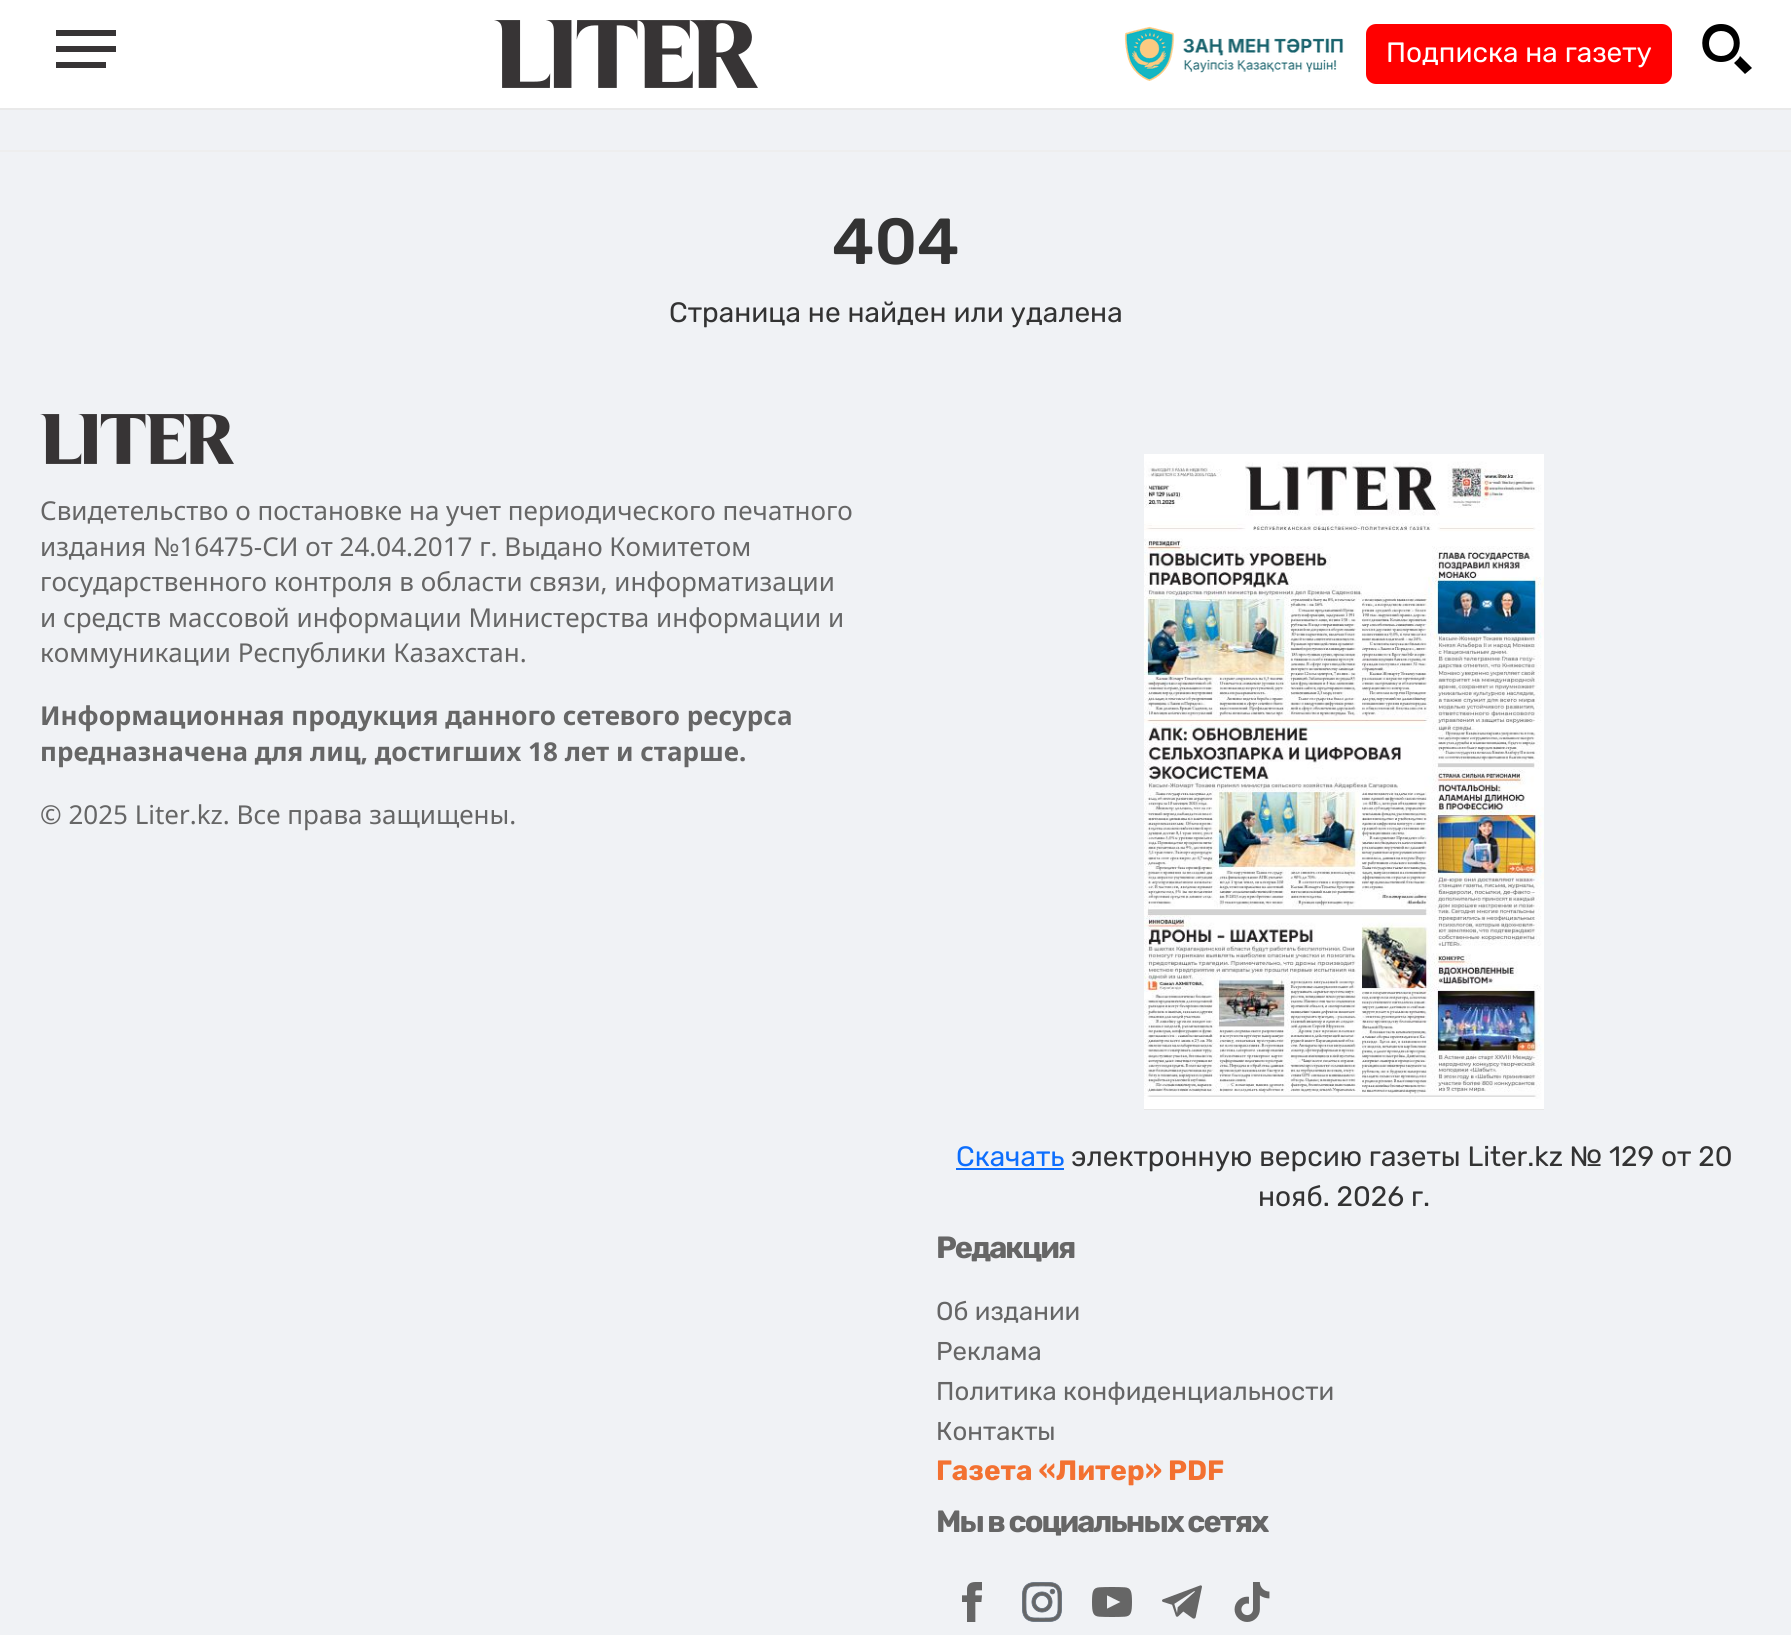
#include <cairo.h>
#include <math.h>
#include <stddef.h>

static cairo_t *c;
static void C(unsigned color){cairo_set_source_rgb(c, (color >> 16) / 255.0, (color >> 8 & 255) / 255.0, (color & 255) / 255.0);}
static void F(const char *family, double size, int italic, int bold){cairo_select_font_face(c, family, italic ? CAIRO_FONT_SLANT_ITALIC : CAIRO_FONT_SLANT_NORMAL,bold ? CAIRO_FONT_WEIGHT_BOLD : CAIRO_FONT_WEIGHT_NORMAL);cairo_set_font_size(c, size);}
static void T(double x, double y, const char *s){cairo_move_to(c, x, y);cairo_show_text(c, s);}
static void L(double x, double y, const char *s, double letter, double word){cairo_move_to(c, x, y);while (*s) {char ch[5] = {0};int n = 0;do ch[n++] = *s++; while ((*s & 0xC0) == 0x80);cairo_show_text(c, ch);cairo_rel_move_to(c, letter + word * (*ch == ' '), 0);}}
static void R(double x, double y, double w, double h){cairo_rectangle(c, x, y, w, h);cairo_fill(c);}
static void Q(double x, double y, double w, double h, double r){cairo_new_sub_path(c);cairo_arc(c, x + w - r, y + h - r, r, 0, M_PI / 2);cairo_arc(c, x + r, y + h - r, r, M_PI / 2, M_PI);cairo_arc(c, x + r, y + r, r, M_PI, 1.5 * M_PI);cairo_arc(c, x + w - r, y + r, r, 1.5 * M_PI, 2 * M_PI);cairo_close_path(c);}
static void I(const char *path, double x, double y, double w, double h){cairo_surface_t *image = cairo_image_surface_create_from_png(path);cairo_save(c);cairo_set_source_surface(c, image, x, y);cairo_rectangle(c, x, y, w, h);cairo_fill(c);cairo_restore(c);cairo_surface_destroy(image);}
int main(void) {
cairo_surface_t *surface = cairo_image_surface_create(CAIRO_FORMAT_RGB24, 1791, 1635);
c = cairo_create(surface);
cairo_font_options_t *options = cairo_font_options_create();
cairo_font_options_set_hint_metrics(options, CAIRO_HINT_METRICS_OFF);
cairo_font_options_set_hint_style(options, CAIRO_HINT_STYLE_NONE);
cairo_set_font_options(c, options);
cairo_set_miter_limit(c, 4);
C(0xf0f2f5);
cairo_paint(c);
C(0xffffff);
R(0,0,1791,108);
C(0xe9e9e9);
R(0,108,1791,2);
C(0x373435);
R(56,30,60,6);
R(56,46,60,6);
R(56,62,50,6);
I("1.png",494,20,264,68);
I("2.png",1124,26,220,55);
C(0xff0000);
Q(1366,24,306,60,10);
cairo_fill(c);
F("Rubik",28,0,0);
C(0xffffff);
T(1386,62,"Подписка на газету");
C(0x000000);
cairo_new_path(c);
cairo_move_to(c,1721,62);
cairo_curve_to(c,1696,62,1696,24,1721,24);
cairo_curve_to(c,1746,24,1746,62,1721,62);
cairo_close_path(c);
cairo_move_to(c,1721,31);
cairo_curve_to(c,1705,31,1705,56,1721,56);
cairo_curve_to(c,1738,56,1738,31,1721,31);
cairo_close_path(c);
cairo_move_to(c,1740,56);
cairo_curve_to(c,1739,59,1736,61,1734,63);
cairo_line_to(c,1745,74);
cairo_line_to(c,1752,68);
cairo_close_path(c);
cairo_fill(c);
C(0xeeeeee);
R(0,150,1791,2);
F("Rubik Medium",65,0,0);
C(0x333333);
T(832,264,"404");
F("Rubik",28,0,0);
T(669,322,"Страница не найден или удалена");
I("3.png",40,414,194,50);
F("Noto Sans",26,0,0);
C(0x666666);
T(40,520,"Свидетельство о постановке на учет периодического печатного");
T(40,556,"издания №16475-СИ от 24.04.2017 г. Выдано Комитетом");
T(40,591,"государственного контроля в области связи, информатизации");
T(40,627,"и средств массовой информации Министерства информации и");
T(40,662,"коммуникации Республики Казахстан.");
F("Noto Sans",26,0,1);
T(40,725,"Информационная продукция данного сетевого ресурса");
T(40,761,"предназначена для лиц, достигших 18 лет и старше.");
F("Noto Sans",26,0,0);
T(40,824,"© 2025 Liter.kz. Все права защищены.");
I("4.png",1144,454,400,656);
F("Rubik",28,0,0);
C(0x0d6efd);
T(956,1166,"Скачать");
R(956,1168,108,2);
C(0x333333);
T(1071,1166,"электронную версию газеты Liter.kz № 129 от 20");
T(1258,1206,"нояб. 2026 г.");
F("Rubik",30.75,0,1);
C(0x666666);
L(936,1258,"Редакция",-2,0);
F("Rubik",25.75,0,0);
T(936,1320,"Об издании");
T(936,1360,"Реклама");
T(936,1400,"Политика конфиденциальности");
T(936,1440,"Контакты");
F("Rubik",28,0,1);
C(0xf37131);
T(936,1480,"Газета «Литер» PDF");
F("Rubik",30.75,0,1);
C(0x666666);
L(936,1532,"Мы в социальных сетях",-2,0);
I("5.png",962,1582,20,40);
I("6.png",1022,1582,40,40);
I("7.png",1092,1587,40,30);
I("8.png",1162,1585,40,34);
I("9.png",1234,1582,36,40);
cairo_surface_write_to_png(surface, "o.png");
cairo_font_options_destroy(options);
cairo_destroy(c);
cairo_surface_destroy(surface);
return 0;
}
